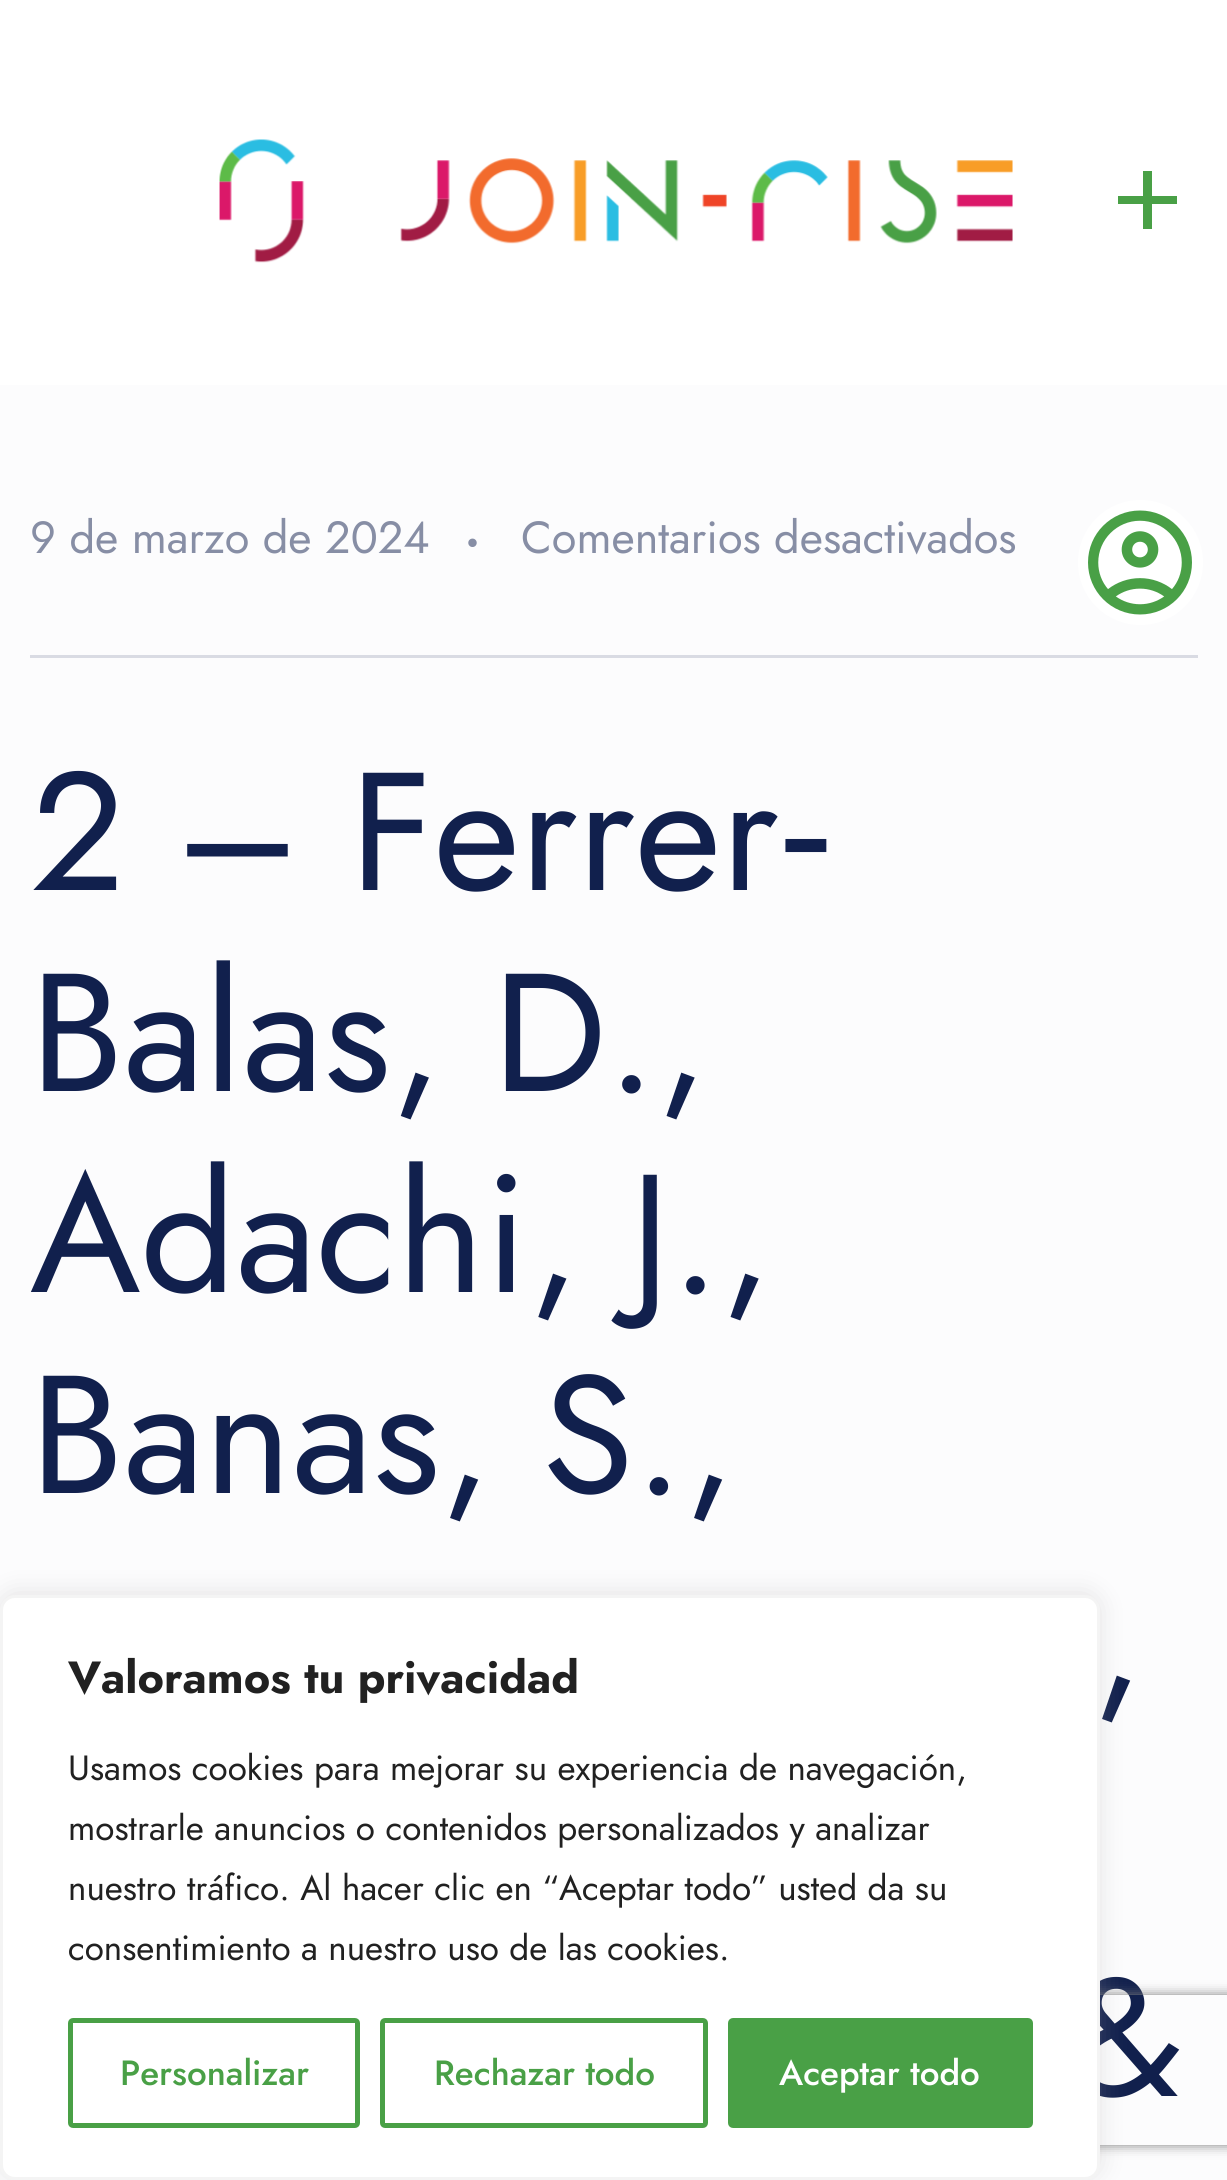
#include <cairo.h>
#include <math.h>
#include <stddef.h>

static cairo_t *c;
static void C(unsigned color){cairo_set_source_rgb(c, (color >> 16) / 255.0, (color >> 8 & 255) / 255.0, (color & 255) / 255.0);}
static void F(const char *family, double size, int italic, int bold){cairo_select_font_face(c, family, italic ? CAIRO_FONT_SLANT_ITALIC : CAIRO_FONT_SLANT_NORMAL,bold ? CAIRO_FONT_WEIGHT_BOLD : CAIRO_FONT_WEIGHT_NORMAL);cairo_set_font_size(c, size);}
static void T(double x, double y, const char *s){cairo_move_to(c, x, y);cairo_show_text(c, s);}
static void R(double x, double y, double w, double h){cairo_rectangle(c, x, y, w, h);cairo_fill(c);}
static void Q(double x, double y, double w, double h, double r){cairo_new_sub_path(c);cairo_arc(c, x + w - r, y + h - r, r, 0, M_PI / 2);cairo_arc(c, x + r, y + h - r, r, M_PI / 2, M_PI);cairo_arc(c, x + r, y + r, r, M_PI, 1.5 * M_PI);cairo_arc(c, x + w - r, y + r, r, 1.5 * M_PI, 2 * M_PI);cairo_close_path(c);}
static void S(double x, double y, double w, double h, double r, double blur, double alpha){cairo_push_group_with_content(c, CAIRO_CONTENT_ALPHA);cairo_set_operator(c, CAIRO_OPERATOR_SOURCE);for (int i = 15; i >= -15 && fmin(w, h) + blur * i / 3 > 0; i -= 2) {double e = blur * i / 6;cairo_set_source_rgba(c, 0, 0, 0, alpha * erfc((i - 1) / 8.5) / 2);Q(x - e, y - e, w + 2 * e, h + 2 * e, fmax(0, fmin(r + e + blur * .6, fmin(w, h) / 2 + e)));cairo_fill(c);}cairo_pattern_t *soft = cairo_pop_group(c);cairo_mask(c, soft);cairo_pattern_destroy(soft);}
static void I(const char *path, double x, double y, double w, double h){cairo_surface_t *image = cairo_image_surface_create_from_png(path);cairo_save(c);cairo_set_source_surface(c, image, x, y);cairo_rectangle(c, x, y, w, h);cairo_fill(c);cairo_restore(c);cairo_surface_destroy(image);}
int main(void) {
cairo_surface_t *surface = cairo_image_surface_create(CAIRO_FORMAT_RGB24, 1227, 2180);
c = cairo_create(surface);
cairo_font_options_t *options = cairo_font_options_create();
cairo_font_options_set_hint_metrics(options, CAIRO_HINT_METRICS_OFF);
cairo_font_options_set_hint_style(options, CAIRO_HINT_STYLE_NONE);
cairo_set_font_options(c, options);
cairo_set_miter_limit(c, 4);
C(0xfcfcfd);
cairo_paint(c);
C(0xffffff);
cairo_arc(c,1140.5,562.5,62.5,0,2 * M_PI);
cairo_fill(c);
I("1.png",1088,510,104,105);
R(0,0,1227,385);
I("2.png",219,139,794,124);
C(0x49a046);
cairo_new_path(c);
cairo_move_to(c,1177,204);
cairo_line_to(c,1152,204);
cairo_line_to(c,1152,229);
cairo_line_to(c,1143,229);
cairo_line_to(c,1143,204);
cairo_line_to(c,1118,204);
cairo_line_to(c,1118,196);
cairo_line_to(c,1143,196);
cairo_line_to(c,1143,171);
cairo_line_to(c,1152,171);
cairo_line_to(c,1152,196);
cairo_line_to(c,1177,196);
cairo_close_path(c);
cairo_fill(c);
C(0xd9dbe3);
R(30,655,1168,3);
F("Jost",45,0,0);
C(0x878ea5);
T(30,553,"9 de marzo de 2024");
I("3.png",468,538,9,9);
T(521,553,"Comentarios desactivados");
F("Jost",167.5,0,0);
C(0x11204d);
T(30,890,"2 – Ferrer");
F("Liberation Sans",167.5,0,0);
T(778,890,"‐");
F("Jost",167.5,0,0);
T(30,1091,"Balas, D.,");
T(30,1292,"Adachi, J.,");
T(30,1493,"Banas, S.,");
T(1092,1694,",");
T(1068,2096,"&");
C(0xacabab);
S(0,1593,1100,585,15,12.5,.3);
cairo_save(c);
cairo_set_fill_rule(c,CAIRO_FILL_RULE_EVEN_ODD);
cairo_new_path(c);
cairo_move_to(c,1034,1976);
cairo_line_to(c,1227,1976);
cairo_line_to(c,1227,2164);
cairo_line_to(c,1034,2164);
cairo_close_path(c);
cairo_move_to(c,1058,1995);
cairo_line_to(c,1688,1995);
cairo_curve_to(c,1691,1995,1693,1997,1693,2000);
cairo_line_to(c,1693,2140);
cairo_curve_to(c,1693,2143,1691,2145,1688,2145);
cairo_line_to(c,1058,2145);
cairo_curve_to(c,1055,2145,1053,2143,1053,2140);
cairo_line_to(c,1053,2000);
cairo_curve_to(c,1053,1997,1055,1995,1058,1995);
cairo_close_path(c);
cairo_clip(c);
C(0x808080);
S(1053,1995,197,150,5,6,1);
cairo_restore(c);
C(0xffffff);
Q(1.5,1596.5,1097,582,13.5);
cairo_fill_preserve(c);
C(0xf4f4f4);
cairo_set_line_width(c,3);
cairo_stroke(c);
F("Jost",45,0,1);
C(0x212121);
T(68,1693,"Valoramos tu privacidad");
F("Jost",35,0,0);
T(68,1780,"Usamos cookies para mejorar su experiencia de navegación,");
T(68,1840,"mostrarle anuncios o contenidos personalizados y analizar");
T(68,1900,"nuestro tráfico. Al hacer clic en “Aceptar todo” usted da su");
T(68,1960,"consentimiento a nuestro uso de las cookies.");
Q(70.5,2020.5,287,105,2.5);
C(0x49a046);
cairo_set_line_width(c,5);
cairo_stroke(c);
F("Jost Medium",35,0,0);
T(120,2085,"Personalizar");
Q(382.5,2020.5,323,105,2.5);
cairo_stroke(c);
T(434,2085,"Rechazar todo");
Q(730.5,2020.5,300,105,2.5);
cairo_fill_preserve(c);
cairo_stroke(c);
C(0xffffff);
T(779,2085,"Aceptar todo");
cairo_surface_write_to_png(surface, "o.png");
cairo_font_options_destroy(options);
cairo_destroy(c);
cairo_surface_destroy(surface);
return 0;
}
